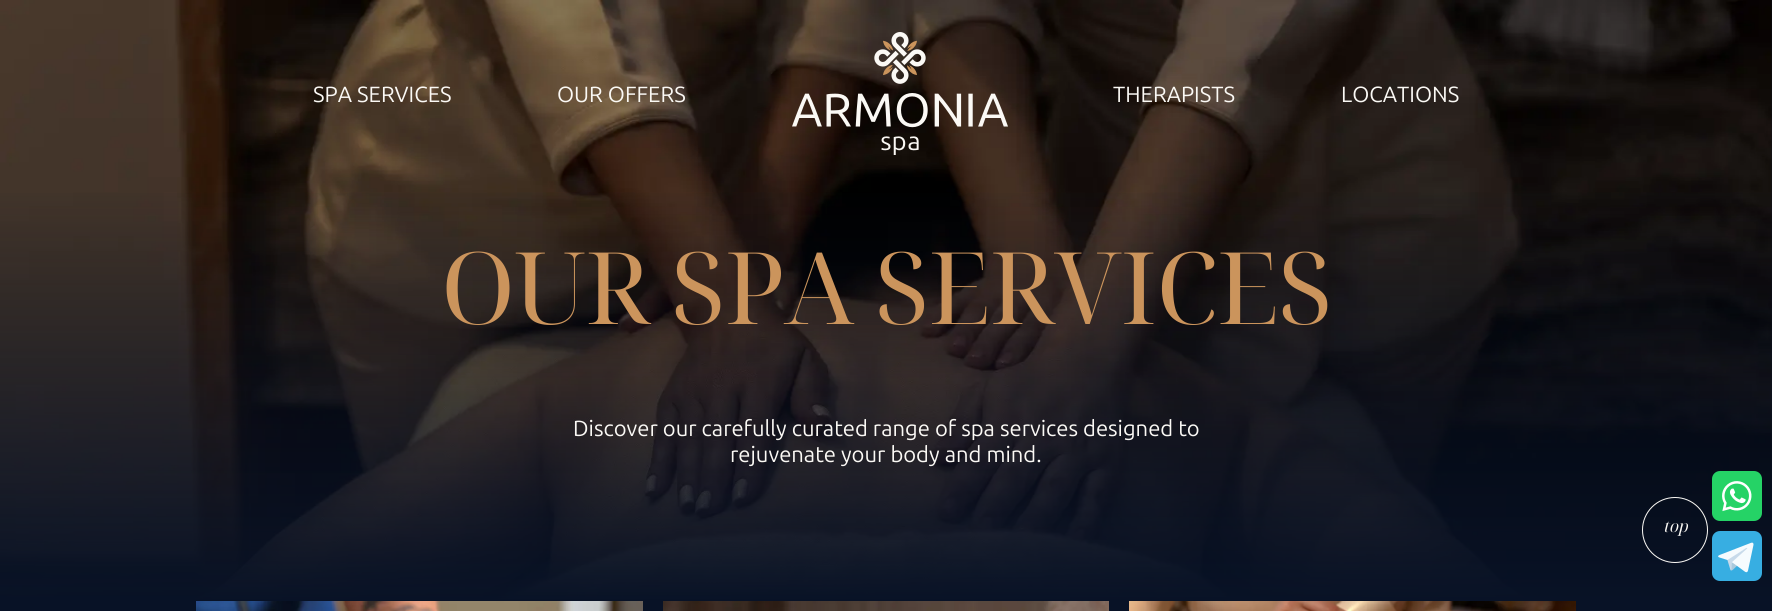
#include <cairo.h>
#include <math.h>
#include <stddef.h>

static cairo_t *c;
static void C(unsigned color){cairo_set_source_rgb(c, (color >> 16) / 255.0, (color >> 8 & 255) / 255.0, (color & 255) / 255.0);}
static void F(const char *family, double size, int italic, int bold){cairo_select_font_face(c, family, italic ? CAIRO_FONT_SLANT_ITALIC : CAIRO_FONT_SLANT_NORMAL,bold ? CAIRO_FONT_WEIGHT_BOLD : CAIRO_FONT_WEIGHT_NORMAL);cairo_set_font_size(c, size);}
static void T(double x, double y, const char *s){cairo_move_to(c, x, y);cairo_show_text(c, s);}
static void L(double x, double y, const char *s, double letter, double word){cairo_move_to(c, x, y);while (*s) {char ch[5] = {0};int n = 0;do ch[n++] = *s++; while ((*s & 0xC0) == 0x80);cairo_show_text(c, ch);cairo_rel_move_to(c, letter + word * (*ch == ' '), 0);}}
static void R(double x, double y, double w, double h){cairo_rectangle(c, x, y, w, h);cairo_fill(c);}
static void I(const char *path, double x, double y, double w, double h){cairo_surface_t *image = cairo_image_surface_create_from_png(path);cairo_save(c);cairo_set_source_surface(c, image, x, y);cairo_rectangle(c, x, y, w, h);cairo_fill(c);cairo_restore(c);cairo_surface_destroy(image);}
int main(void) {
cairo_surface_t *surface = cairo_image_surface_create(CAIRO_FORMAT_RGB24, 1772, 611);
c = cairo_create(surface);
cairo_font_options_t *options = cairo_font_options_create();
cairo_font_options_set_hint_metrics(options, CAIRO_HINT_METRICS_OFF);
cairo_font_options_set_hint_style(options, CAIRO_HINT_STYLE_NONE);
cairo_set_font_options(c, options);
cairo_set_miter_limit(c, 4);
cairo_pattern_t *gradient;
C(0x081226);
cairo_paint(c);
I("1.png",0,0,1772,599);
gradient = cairo_pattern_create_linear(886,601,886,0);
cairo_pattern_add_color_stop_rgba(gradient,0,0.031,0.071,0.149,1);
cairo_pattern_add_color_stop_rgba(gradient,.7,0.031,0.071,0.149,0);
cairo_set_source(c,gradient);
cairo_pattern_destroy(gradient);
R(0,193,1772,406);
F("Ubuntu",22,0,0);
C(0xfbf9f5);
T(313,102,"SPA SERVICES");
T(557,102,"OUR OFFERS");
I("2.png",792,32,216,123);
T(1113,102,"THERAPISTS");
T(1341,102,"LOCATIONS");
F("Noto Serif Display",100,0,0);
C(0xcb945c);
L(441,324,"OUR SPA SERVICES",-1,0);
F("Ubuntu",22,0,0);
C(0xfbf9f5);
T(573,436,"Discover our carefully curated range of spa services designed to");
T(730,462,"rejuvenate your body and mind.");
I("3.png",196,601,447,10);
I("4.png",663,601,446,10);
I("5.png",1129,601,447,10);
I("6.png",1712,471,50,50);
cairo_arc(c,1675,530,32.5,0,2 * M_PI);
cairo_set_line_width(c,1);
cairo_stroke(c);
F("Noto Serif Display",16,1,0);
T(1663,532,"top");
I("7.png",1712,531,50,50);
cairo_surface_write_to_png(surface, "o.png");
cairo_font_options_destroy(options);
cairo_destroy(c);
cairo_surface_destroy(surface);
return 0;
}
